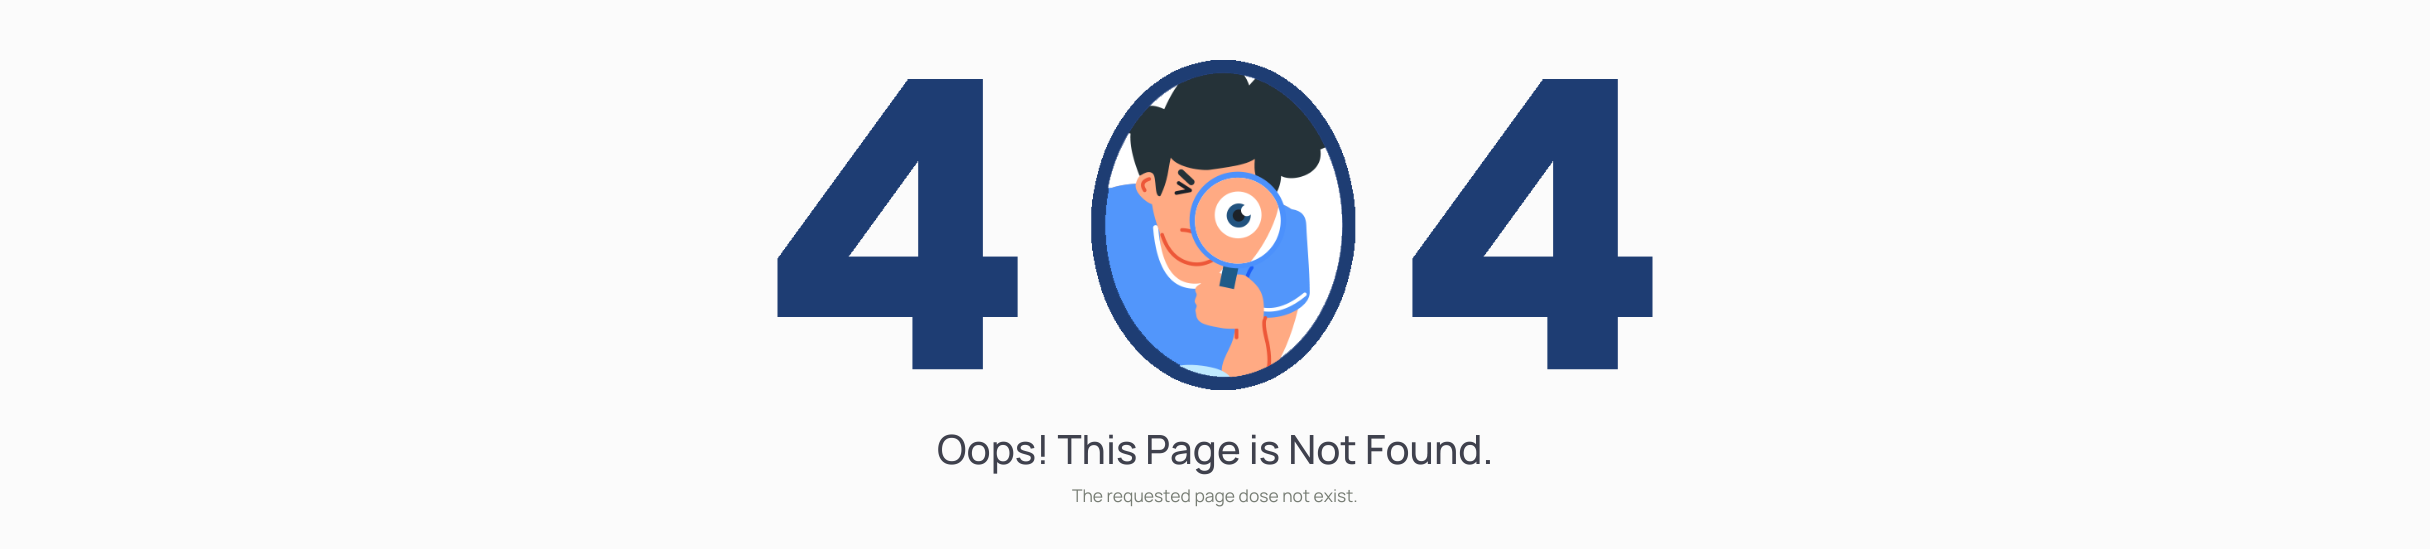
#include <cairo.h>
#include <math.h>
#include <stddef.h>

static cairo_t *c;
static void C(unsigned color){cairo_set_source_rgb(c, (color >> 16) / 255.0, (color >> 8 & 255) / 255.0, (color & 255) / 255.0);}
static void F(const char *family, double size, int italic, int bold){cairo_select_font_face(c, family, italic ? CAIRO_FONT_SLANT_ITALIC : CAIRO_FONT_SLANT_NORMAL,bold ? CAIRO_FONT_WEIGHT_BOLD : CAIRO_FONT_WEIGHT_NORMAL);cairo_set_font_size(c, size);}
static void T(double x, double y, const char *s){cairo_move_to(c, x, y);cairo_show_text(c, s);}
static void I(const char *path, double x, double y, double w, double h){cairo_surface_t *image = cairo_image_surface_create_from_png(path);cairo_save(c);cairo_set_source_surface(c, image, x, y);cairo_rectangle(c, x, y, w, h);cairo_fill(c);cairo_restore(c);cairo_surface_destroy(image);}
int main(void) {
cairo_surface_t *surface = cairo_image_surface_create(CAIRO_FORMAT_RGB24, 2430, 549);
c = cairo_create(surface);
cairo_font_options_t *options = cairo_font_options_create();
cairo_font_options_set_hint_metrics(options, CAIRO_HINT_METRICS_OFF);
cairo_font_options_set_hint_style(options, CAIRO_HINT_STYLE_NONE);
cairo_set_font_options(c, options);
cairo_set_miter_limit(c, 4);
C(0xfbfbfb);
cairo_paint(c);
I("1.png",777,60,876,330);
F("Manrope Medium",40.25,0,0);
C(0x3f414d);
T(937,464,"Oops! This Page is Not Found.");
F("Manrope",17.5,0,0);
C(0x777d74);
T(1072,502,"The requested page dose not exist.");
cairo_surface_write_to_png(surface, "o.png");
cairo_font_options_destroy(options);
cairo_destroy(c);
cairo_surface_destroy(surface);
return 0;
}
